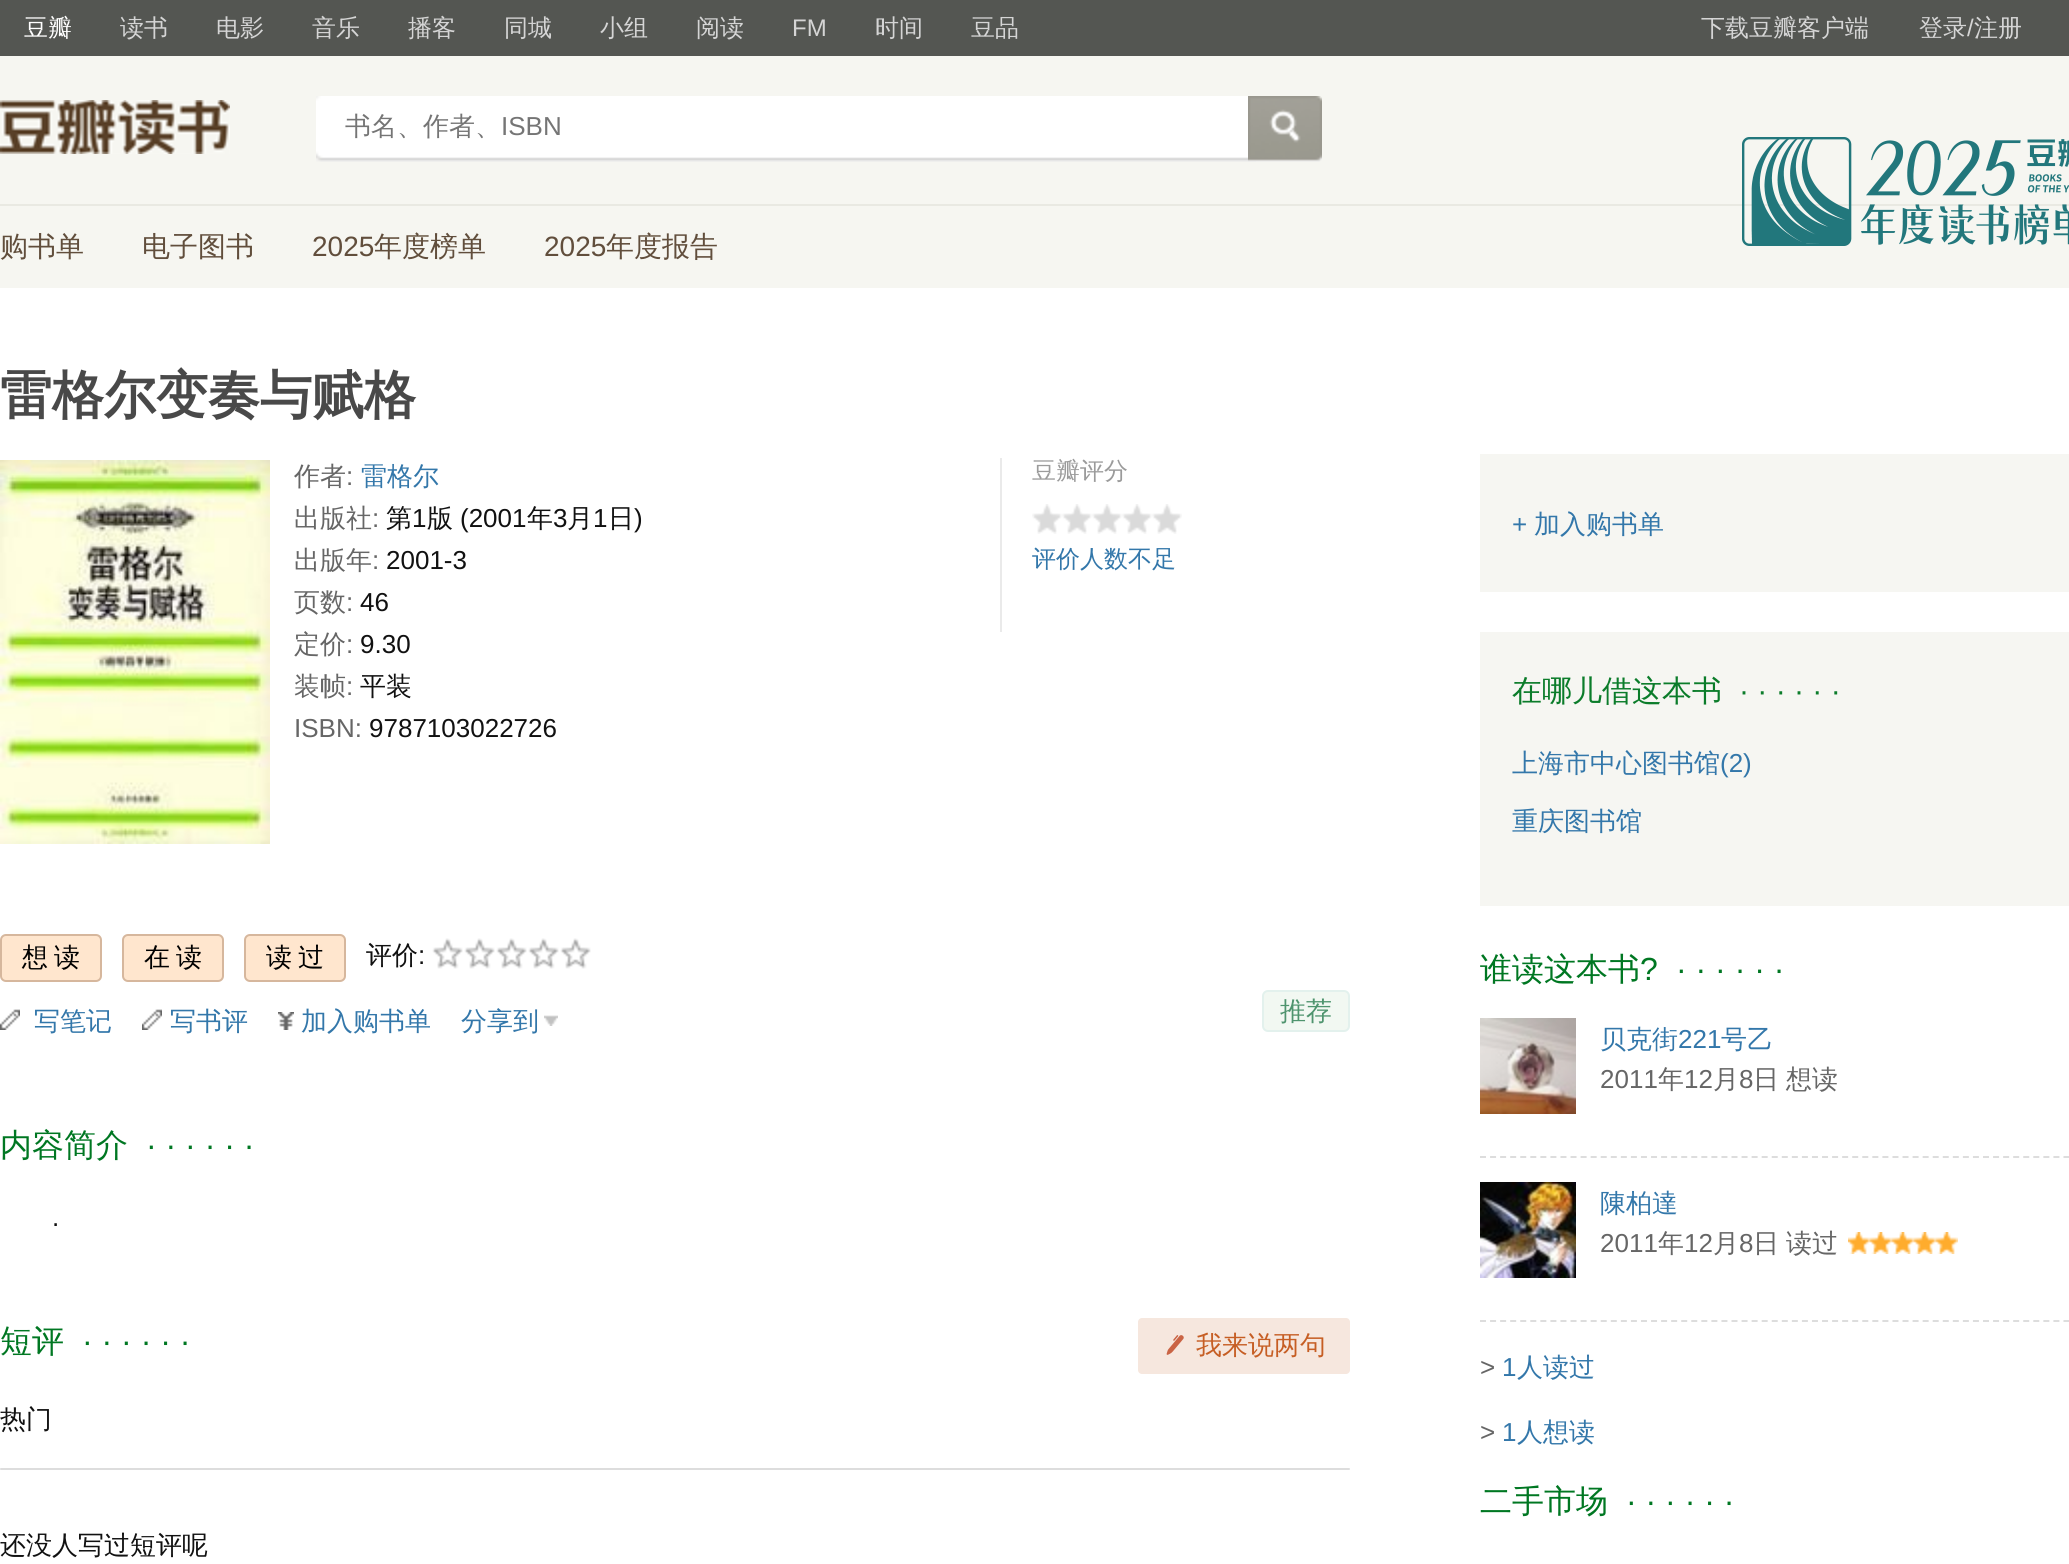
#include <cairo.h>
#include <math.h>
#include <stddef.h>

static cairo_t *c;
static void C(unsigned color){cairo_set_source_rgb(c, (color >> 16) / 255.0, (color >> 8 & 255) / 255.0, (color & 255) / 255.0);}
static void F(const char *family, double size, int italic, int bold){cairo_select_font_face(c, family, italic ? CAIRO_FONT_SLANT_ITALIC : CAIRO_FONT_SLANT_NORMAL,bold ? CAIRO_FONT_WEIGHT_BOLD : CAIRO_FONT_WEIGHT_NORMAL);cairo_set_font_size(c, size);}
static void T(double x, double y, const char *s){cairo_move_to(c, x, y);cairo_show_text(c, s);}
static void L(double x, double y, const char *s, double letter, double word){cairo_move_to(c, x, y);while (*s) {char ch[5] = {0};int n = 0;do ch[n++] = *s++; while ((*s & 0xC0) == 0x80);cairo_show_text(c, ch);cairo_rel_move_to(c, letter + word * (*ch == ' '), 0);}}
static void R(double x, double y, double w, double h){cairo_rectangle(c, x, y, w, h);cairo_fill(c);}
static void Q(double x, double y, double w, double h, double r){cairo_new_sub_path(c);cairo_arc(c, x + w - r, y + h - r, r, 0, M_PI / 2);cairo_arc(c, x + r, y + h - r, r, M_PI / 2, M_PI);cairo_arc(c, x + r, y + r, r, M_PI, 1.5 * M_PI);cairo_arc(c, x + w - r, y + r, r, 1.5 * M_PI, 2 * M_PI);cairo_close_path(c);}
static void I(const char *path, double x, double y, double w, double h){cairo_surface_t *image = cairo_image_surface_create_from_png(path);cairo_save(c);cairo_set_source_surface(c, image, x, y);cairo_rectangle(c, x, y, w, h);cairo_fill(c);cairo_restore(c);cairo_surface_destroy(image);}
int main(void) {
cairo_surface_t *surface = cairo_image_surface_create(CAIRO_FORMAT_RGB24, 2069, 1564);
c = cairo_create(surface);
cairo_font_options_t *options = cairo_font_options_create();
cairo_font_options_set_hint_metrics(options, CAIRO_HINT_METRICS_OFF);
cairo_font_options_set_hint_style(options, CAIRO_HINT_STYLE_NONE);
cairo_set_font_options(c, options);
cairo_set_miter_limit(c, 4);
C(0xffffff);
cairo_paint(c);
C(0x545652);
R(0,0,2069,56);
F("WenQuanYi Zen Hei Medium",24,0,0);
C(0xffffff);
T(24,36,"豆瓣");
C(0xd5d5d5);
T(120,36,"读书");
T(216,36,"电影");
T(312,36,"音乐");
T(408,36,"播客");
T(504,36,"同城");
T(600,36,"小组");
T(696,36,"阅读");
F("Liberation Sans",24,0,0);
T(792,36,"FM");
F("WenQuanYi Zen Hei Medium",24,0,0);
T(875,36,"时间");
T(971,36,"豆品");
T(1701,36,"下载豆瓣客户端");
T(1919,36,"登录");
F("Liberation Sans",24,0,0);
T(1967,36,"/");
F("WenQuanYi Zen Hei Medium",24,0,0);
T(1974,36,"注册");
C(0xf6f6f1);
R(0,56,2069,232);
C(0xe9e9e2);
R(0,204,2069,2);
I("1.png",0,100,230,54);
I("2.png",316,96,940,66);
F("WenQuanYi Zen Hei Medium",26,0,0);
C(0x757575);
T(345,135,"书名、作者、");
F("Liberation Sans",26,0,0);
T(501,135,"ISBN");
I("3.png",1248,96,74,66);
F("WenQuanYi Zen Hei Medium",28,0,0);
C(0x614e3c);
T(0,256,"购书单");
T(142,256,"电子图书");
F("Liberation Sans",28,0,0);
T(312,256,"2025");
F("WenQuanYi Zen Hei Medium",28,0,0);
T(374,256,"年度榜单");
F("Liberation Sans",28,0,0);
T(544,256,"2025");
F("WenQuanYi Zen Hei Medium",28,0,0);
T(606,256,"年度报告");
I("4.png",1742,137,327,109);
F("WenQuanYi Zen Hei",52,0,1);
C(0x494949);
T(0,413,"雷格尔变奏与赋格");
I("5.png",0,460,270,384);
F("WenQuanYi Zen Hei Medium",26,0,0);
C(0x666666);
T(294,485,"作者");
F("Liberation Sans",26,0,0);
T(346,485,":");
F("WenQuanYi Zen Hei Medium",26,0,0);
C(0x3377aa);
T(361,485,"雷格尔");
C(0x666666);
T(294,527,"出版社");
F("Liberation Sans",26,0,0);
T(372,527,":");
F("WenQuanYi Zen Hei Medium",26,0,0);
C(0x111111);
T(386,527,"第");
F("Liberation Sans",26,0,0);
T(412,527,"1");
F("WenQuanYi Zen Hei Medium",26,0,0);
T(427,527,"版");
F("Liberation Sans",26,0,0);
T(460,527,"(2001");
F("WenQuanYi Zen Hei Medium",26,0,0);
T(527,527,"年");
F("Liberation Sans",26,0,0);
T(553,527,"3");
F("WenQuanYi Zen Hei Medium",26,0,0);
T(567,527,"月");
F("Liberation Sans",26,0,0);
T(593,527,"1");
F("WenQuanYi Zen Hei Medium",26,0,0);
T(608,527,"日");
F("Liberation Sans",26,0,0);
T(634,527,")");
F("WenQuanYi Zen Hei Medium",26,0,0);
C(0x666666);
T(294,569,"出版年");
F("Liberation Sans",26,0,0);
T(372,569,":");
C(0x111111);
T(386,569,"2001-3");
F("WenQuanYi Zen Hei Medium",26,0,0);
C(0x666666);
T(294,611,"页数");
F("Liberation Sans",26,0,0);
T(346,611,":");
C(0x111111);
T(360,611,"46");
F("WenQuanYi Zen Hei Medium",26,0,0);
C(0x666666);
T(294,653,"定价");
F("Liberation Sans",26,0,0);
T(346,653,":");
C(0x111111);
T(360,653,"9.30");
F("WenQuanYi Zen Hei Medium",26,0,0);
C(0x666666);
T(294,695,"装帧");
F("Liberation Sans",26,0,0);
T(346,695,":");
F("WenQuanYi Zen Hei Medium",26,0,0);
C(0x111111);
T(360,695,"平装");
F("Liberation Sans",26,0,0);
C(0x666666);
T(294,737,"ISBN:");
C(0x111111);
T(369,737,"9787103022726");
C(0xeaeaea);
R(1000,458,2,174);
F("WenQuanYi Zen Hei Medium",24,0,0);
C(0x9b9b9b);
T(1032,479,"豆瓣评分");
I("6.png",1032,504,150,30);
C(0x3377aa);
T(1032,567,"评价人数不足");
C(0xffe6ce);
Q(1,935,100,46,5);
cairo_fill_preserve(c);
C(0xd6b79d);
cairo_stroke(c);
F("WenQuanYi Zen Hei Medium",26,0,0);
C(0x000000);
L(22,966,"想读",6,0);
C(0xffe6ce);
Q(123,935,100,46,5);
cairo_fill_preserve(c);
C(0xd6b79d);
cairo_stroke(c);
C(0x000000);
L(144,966,"在读",6,0);
C(0xffe6ce);
Q(245,935,100,46,5);
cairo_fill_preserve(c);
C(0xd6b79d);
cairo_stroke(c);
C(0x000000);
L(266,966,"读过",6,0);
C(0x111111);
T(366,964,"评价");
F("Liberation Sans",26,0,0);
T(418,964,":");
I("7.png",432,938,31,31);
I("7.png",464,938,31,31);
I("7.png",496,938,31,31);
I("7.png",528,938,31,31);
I("7.png",560,938,31,31);
I("8.png",0,1009,20,21);
F("WenQuanYi Zen Hei Medium",26,0,0);
C(0x3377aa);
T(34,1030,"写笔记");
I("8.png",142,1009,20,21);
T(170,1030,"写书评");
I("9.png",278,1012,16,18);
T(301,1030,"加入购书单");
T(461,1030,"分享到");
I("10.png",544,1015,14,11);
C(0xf2f8f2);
Q(1263,991,86,40,5);
cairo_fill_preserve(c);
C(0xe3f1ed);
cairo_stroke(c);
C(0x4f946e);
T(1280,1020,"推荐");
F("WenQuanYi Zen Hei Medium",32,0,0);
C(0x007722);
T(0,1156,"内容简介");
F("Liberation Sans",32,0,0);
T(146,1156,"· · · · · ·");
F("Liberation Sans",26,0,0);
C(0x111111);
T(52,1226,".");
F("WenQuanYi Zen Hei Medium",32,0,0);
C(0x007722);
T(0,1352,"短评");
F("Liberation Sans",32,0,0);
T(82,1352,"· · · · · ·");
C(0xf6e7de);
Q(1138,1318,212,56,4);
cairo_fill(c);
I("11.png",1166,1335,18,20);
F("WenQuanYi Zen Hei Medium",26,0,0);
C(0xc65e24);
T(1196,1354,"我来说两句");
C(0x111111);
T(0,1428,"热门");
C(0xdddddd);
Q(0,1468,1350,2,1);
cairo_fill(c);
C(0x111111);
T(0,1554,"还没人写过短评呢");
C(0xf6f6f2);
R(1480,454,589,138);
F("Liberation Sans",26,0,0);
C(0x3377aa);
T(1512,533,"+");
F("WenQuanYi Zen Hei Medium",26,0,0);
T(1534,533,"加入购书单");
C(0xf6f6f2);
R(1480,632,589,274);
F("WenQuanYi Zen Hei Medium",30,0,0);
C(0x0b7c2a);
T(1512,701,"在哪儿借这本书");
F("Liberation Sans",30,0,0);
T(1739,701,"· · · · · ·");
F("WenQuanYi Zen Hei Medium",26,0,0);
C(0x3377aa);
T(1512,772,"上海市中心图书馆");
F("Liberation Sans",26,0,0);
T(1720,772,"(2)");
F("WenQuanYi Zen Hei Medium",26,0,0);
T(1512,830,"重庆图书馆");
F("WenQuanYi Zen Hei Medium",32,0,0);
C(0x007722);
T(1480,980,"谁读这本书");
F("Liberation Sans",32,0,0);
T(1640,980,"?");
T(1676,980,"· · · · · ·");
I("12.png",1480,1018,96,96);
F("WenQuanYi Zen Hei Medium",26,0,0);
C(0x3377aa);
T(1600,1048,"贝克街");
F("Liberation Sans",26,0,0);
T(1678,1048,"221");
F("WenQuanYi Zen Hei Medium",26,0,0);
T(1721,1048,"号乙");
F("Liberation Sans",26,0,0);
C(0x666666);
T(1600,1088,"2011");
F("WenQuanYi Zen Hei Medium",26,0,0);
T(1658,1088,"年");
F("Liberation Sans",26,0,0);
T(1684,1088,"12");
F("WenQuanYi Zen Hei Medium",26,0,0);
T(1713,1088,"月");
F("Liberation Sans",26,0,0);
T(1739,1088,"8");
F("WenQuanYi Zen Hei Medium",26,0,0);
T(1753,1088,"日");
T(1786,1088,"想读");
cairo_new_path(c);
cairo_move_to(c,1480,1157);
cairo_line_to(c,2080,1157);
C(0xdddddd);
cairo_set_dash(c,(double[]){6,4.06},2,0);
cairo_stroke(c);
I("13.png",1480,1182,96,96);
C(0x3377aa);
T(1600,1212,"陳柏達");
F("Liberation Sans",26,0,0);
C(0x666666);
T(1600,1252,"2011");
F("WenQuanYi Zen Hei Medium",26,0,0);
T(1658,1252,"年");
F("Liberation Sans",26,0,0);
T(1684,1252,"12");
F("WenQuanYi Zen Hei Medium",26,0,0);
T(1713,1252,"月");
F("Liberation Sans",26,0,0);
T(1739,1252,"8");
F("WenQuanYi Zen Hei Medium",26,0,0);
T(1753,1252,"日");
T(1786,1252,"读过");
I("14.png",1848,1232,110,22);
cairo_new_path(c);
cairo_move_to(c,1480,1321);
cairo_line_to(c,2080,1321);
C(0xdddddd);
cairo_stroke(c);
F("Liberation Sans",26,0,0);
C(0x666666);
T(1480,1376,">");
C(0x3377aa);
T(1502,1376,"1");
F("WenQuanYi Zen Hei Medium",26,0,0);
T(1517,1376,"人读过");
F("Liberation Sans",26,0,0);
C(0x666666);
T(1480,1441,">");
C(0x3377aa);
T(1502,1441,"1");
F("WenQuanYi Zen Hei Medium",26,0,0);
T(1517,1441,"人想读");
F("WenQuanYi Zen Hei Medium",32,0,0);
C(0x007722);
T(1480,1512,"二手市场");
F("Liberation Sans",32,0,0);
T(1626,1512,"· · · · · ·");
cairo_surface_write_to_png(surface, "o.png");
cairo_font_options_destroy(options);
cairo_destroy(c);
cairo_surface_destroy(surface);
return 0;
}
